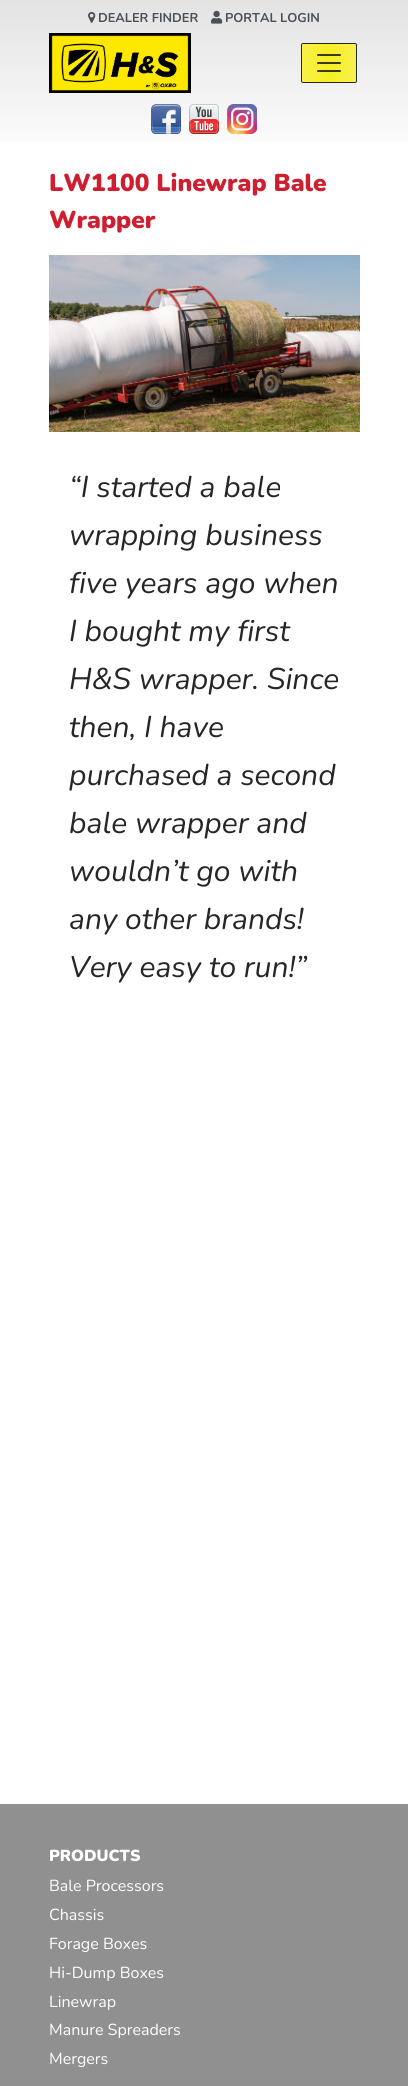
#include <cairo.h>
#include <math.h>
#include <stddef.h>

static cairo_t *c;
static void C(unsigned color){cairo_set_source_rgb(c, (color >> 16) / 255.0, (color >> 8 & 255) / 255.0, (color & 255) / 255.0);}
static void F(const char *family, double size, int italic, int bold){cairo_select_font_face(c, family, italic ? CAIRO_FONT_SLANT_ITALIC : CAIRO_FONT_SLANT_NORMAL,bold ? CAIRO_FONT_WEIGHT_BOLD : CAIRO_FONT_WEIGHT_NORMAL);cairo_set_font_size(c, size);}
static void T(double x, double y, const char *s){cairo_move_to(c, x, y);cairo_show_text(c, s);}
static void R(double x, double y, double w, double h){cairo_rectangle(c, x, y, w, h);cairo_fill(c);}
static void Q(double x, double y, double w, double h, double r){cairo_new_sub_path(c);cairo_arc(c, x + w - r, y + h - r, r, 0, M_PI / 2);cairo_arc(c, x + r, y + h - r, r, M_PI / 2, M_PI);cairo_arc(c, x + r, y + r, r, M_PI, 1.5 * M_PI);cairo_arc(c, x + w - r, y + r, r, 1.5 * M_PI, 2 * M_PI);cairo_close_path(c);}
static void I(const char *path, double x, double y, double w, double h){cairo_surface_t *image = cairo_image_surface_create_from_png(path);cairo_save(c);cairo_set_source_surface(c, image, x, y);cairo_rectangle(c, x, y, w, h);cairo_fill(c);cairo_restore(c);cairo_surface_destroy(image);}
int main(void) {
cairo_surface_t *surface = cairo_image_surface_create(CAIRO_FORMAT_RGB24, 408, 2086);
c = cairo_create(surface);
cairo_font_options_t *options = cairo_font_options_create();
cairo_font_options_set_hint_metrics(options, CAIRO_HINT_METRICS_OFF);
cairo_font_options_set_hint_style(options, CAIRO_HINT_STYLE_NONE);
cairo_set_font_options(c, options);
cairo_set_miter_limit(c, 4);
cairo_pattern_t *gradient;
C(0xffffff);
cairo_paint(c);
gradient = cairo_pattern_create_linear(204,0,204,141);
cairo_pattern_add_color_stop_rgba(gradient,0,0.89,0.89,0.89,1);
cairo_pattern_add_color_stop_rgba(gradient,1,0.984,0.984,0.984,1);
cairo_set_source(c,gradient);
cairo_pattern_destroy(gradient);
R(0,0,408,141);
I("1.png",88,12,8,11);
F("Nunito",12.75,0,1);
C(0x495057);
T(98,22,"DEALER FINDER");
I("2.png",211,10,12,14);
T(225,22,"PORTAL LOGIN");
I("3.png",49,33,142,60);
C(0xf7ee25);
Q(302,44,54,38,1);
cairo_fill(c);
gradient = cairo_pattern_create_linear(302,63,356,63);
cairo_pattern_add_color_stop_rgba(gradient,0,1,1,1,.16);
cairo_pattern_add_color_stop_rgba(gradient,.5,1,1,1,0);
cairo_pattern_add_color_stop_rgba(gradient,1,1,1,1,.18);
cairo_set_source(c,gradient);
cairo_pattern_destroy(gradient);
R(302,44,54,38);
Q(301.5,43.5,55,39,1.5);
C(0x262626);
cairo_set_line_width(c,1);
cairo_stroke(c);
I("4.png",317,54,24,18);
I("5.png",151,104,30,30);
I("6.png",189,104,30,30);
I("7.png",227,104,30,30);
F("Nunito Black",24.4,0,0);
C(0xcf1e2f);
T(49,191,"LW1100 Linewrap Bale");
T(49,228,"Wrapper");
I("8.png",49,255,311,177);
F("Nunito",30,1,0);
C(0x262626);
T(69,497,"“I started a bale");
T(69,545,"wrapping business");
T(69,593,"five years ago when");
T(69,641,"I bought my first");
T(69,689,"H&S wrapper. Since");
T(69,737,"then, I have");
T(69,785,"purchased a second");
T(69,833,"bale wrapper and");
T(69,881,"wouldn’t go with");
T(69,929,"any other brands!");
T(69,977,"Very easy to run!”");
C(0x909090);
R(0,1804,408,282);
F("Nunito Black",16,0,0);
C(0xffffff);
T(49,1861,"PRODUCTS");
F("Nunito",16,0,0);
T(49,1891,"Bale Processors");
T(49,1920,"Chassis");
T(49,1949,"Forage Boxes");
T(49,1978,"Hi-Dump Boxes");
T(49,2007,"Linewrap");
T(49,2035,"Manure Spreaders");
T(49,2064,"Mergers");
cairo_surface_write_to_png(surface, "o.png");
cairo_font_options_destroy(options);
cairo_destroy(c);
cairo_surface_destroy(surface);
return 0;
}
